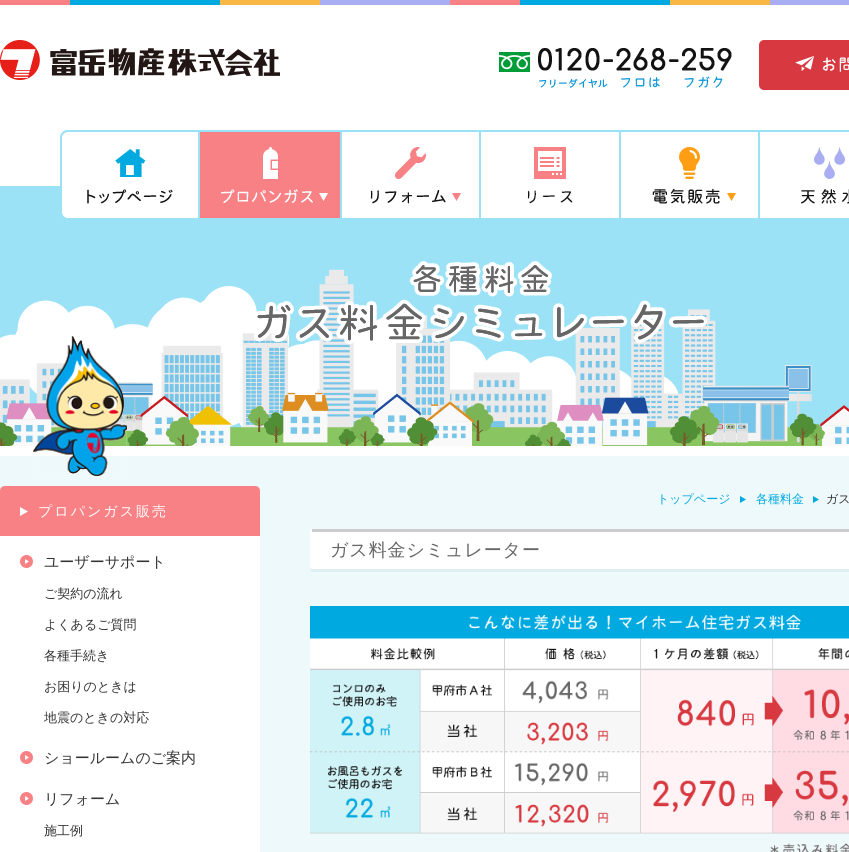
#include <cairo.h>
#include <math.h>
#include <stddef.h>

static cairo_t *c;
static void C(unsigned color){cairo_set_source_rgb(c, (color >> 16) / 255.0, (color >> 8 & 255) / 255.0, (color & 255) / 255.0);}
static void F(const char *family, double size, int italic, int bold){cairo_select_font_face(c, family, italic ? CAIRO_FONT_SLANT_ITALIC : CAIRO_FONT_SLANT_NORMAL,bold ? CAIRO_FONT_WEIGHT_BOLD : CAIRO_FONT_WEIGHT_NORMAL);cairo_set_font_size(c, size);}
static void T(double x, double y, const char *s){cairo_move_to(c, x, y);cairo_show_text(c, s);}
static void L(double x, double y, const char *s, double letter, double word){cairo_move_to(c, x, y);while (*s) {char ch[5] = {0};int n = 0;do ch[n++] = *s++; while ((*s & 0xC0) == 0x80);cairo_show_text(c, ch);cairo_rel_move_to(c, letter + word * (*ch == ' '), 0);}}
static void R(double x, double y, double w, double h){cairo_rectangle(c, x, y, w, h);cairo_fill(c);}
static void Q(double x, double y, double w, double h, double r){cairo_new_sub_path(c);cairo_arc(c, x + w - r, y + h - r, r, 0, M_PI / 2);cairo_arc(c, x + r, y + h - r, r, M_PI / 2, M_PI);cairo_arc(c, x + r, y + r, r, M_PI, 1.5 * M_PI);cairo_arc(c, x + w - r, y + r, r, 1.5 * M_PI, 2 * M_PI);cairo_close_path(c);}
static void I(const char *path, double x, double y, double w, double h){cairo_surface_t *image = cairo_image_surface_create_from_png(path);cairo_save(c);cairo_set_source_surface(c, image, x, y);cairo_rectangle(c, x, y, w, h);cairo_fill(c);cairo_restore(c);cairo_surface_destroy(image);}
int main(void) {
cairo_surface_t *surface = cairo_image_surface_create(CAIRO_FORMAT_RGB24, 849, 852);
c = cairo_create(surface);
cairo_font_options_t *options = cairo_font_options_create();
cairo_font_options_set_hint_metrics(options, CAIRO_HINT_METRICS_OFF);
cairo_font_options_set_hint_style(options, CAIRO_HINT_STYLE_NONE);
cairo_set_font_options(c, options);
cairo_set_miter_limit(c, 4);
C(0xffffff);
cairo_paint(c);
I("1.png",0,0,849,5);
I("2.png",0,40,280,40);
I("3.png",499,48,233,40);
I("4.png",759,40,90,50);
I("11.png",0,186,849,260);
I("5.png",60,130,140,88);
I("6.png",200,130,142,88);
I("7.png",342,130,139,88);
I("8.png",481,130,140,88);
I("9.png",621,130,139,88);
I("10.png",760,130,89,88);
C(0xeef9fc);
R(0,456,849,396);
I("12.png",254,261,454,84);
I("13.png",33,336,94,140);
C(0xf88185);
cairo_new_path(c);
cairo_move_to(c,5,486);
cairo_line_to(c,255,486);
cairo_curve_to(c,258,486,260,488,260,491);
cairo_line_to(c,260,536);
cairo_line_to(c,0,536);
cairo_line_to(c,0,491);
cairo_curve_to(c,0,488,2,486,5,486);
cairo_close_path(c);
cairo_fill(c);
I("14.png",20,507,8,9);
F("WenQuanYi Zen Hei Medium",14,0,0);
C(0xffffff);
L(38,516,"プロパンガス販売",2,0);
R(0,536,260,316);
I("15.png",20,555,13,13);
F("WenQuanYi Zen Hei Medium",15,0,0);
C(0x333333);
T(44,567,"ユーザーサポート");
F("WenQuanYi Zen Hei Medium",13,0,0);
T(44,598,"ご契約の流れ");
T(44,629,"よくあるご質問");
T(44,660,"各種手続き");
T(44,691,"お困りのときは");
T(44,722,"地震のときの対応");
I("15.png",20,751,13,13);
F("WenQuanYi Zen Hei Medium",15,0,0);
T(44,763,"ショールームのご案内");
I("15.png",20,792,13,13);
T(44,804,"リフォーム");
F("WenQuanYi Zen Hei Medium",13,0,0);
T(44,835,"施工例");
F("WenQuanYi Zen Hei Medium",12,0,0);
C(0x00a9e0);
T(657,503,"トップページ");
I("16.png",740,496,6,7);
T(756,503,"各種料金");
I("16.png",813,496,6,7);
C(0x333333);
T(826,503,"ガス");
C(0xe0edf1);
cairo_new_path(c);
cairo_move_to(c,310,566);
cairo_curve_to(c,310,568,310,572,313,572);
cairo_line_to(c,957,572);
cairo_line_to(c,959,571);
cairo_line_to(c,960,566);
cairo_curve_to(c,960,568,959,569,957,569);
cairo_line_to(c,313,569);
cairo_curve_to(c,311,569,310,568,310,566);
cairo_close_path(c);
cairo_fill(c);
C(0xffffff);
Q(310,529,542,40,3);
cairo_fill(c);
C(0xcccccc);
R(312,529,537,3);
F("WenQuanYi Zen Hei Medium",18,0,0);
C(0x666666);
L(330,556,"ガス料金シミュレーター",.9,0);
I("17.png",310,606,539,246);
cairo_surface_write_to_png(surface, "o.png");
cairo_font_options_destroy(options);
cairo_destroy(c);
cairo_surface_destroy(surface);
return 0;
}
